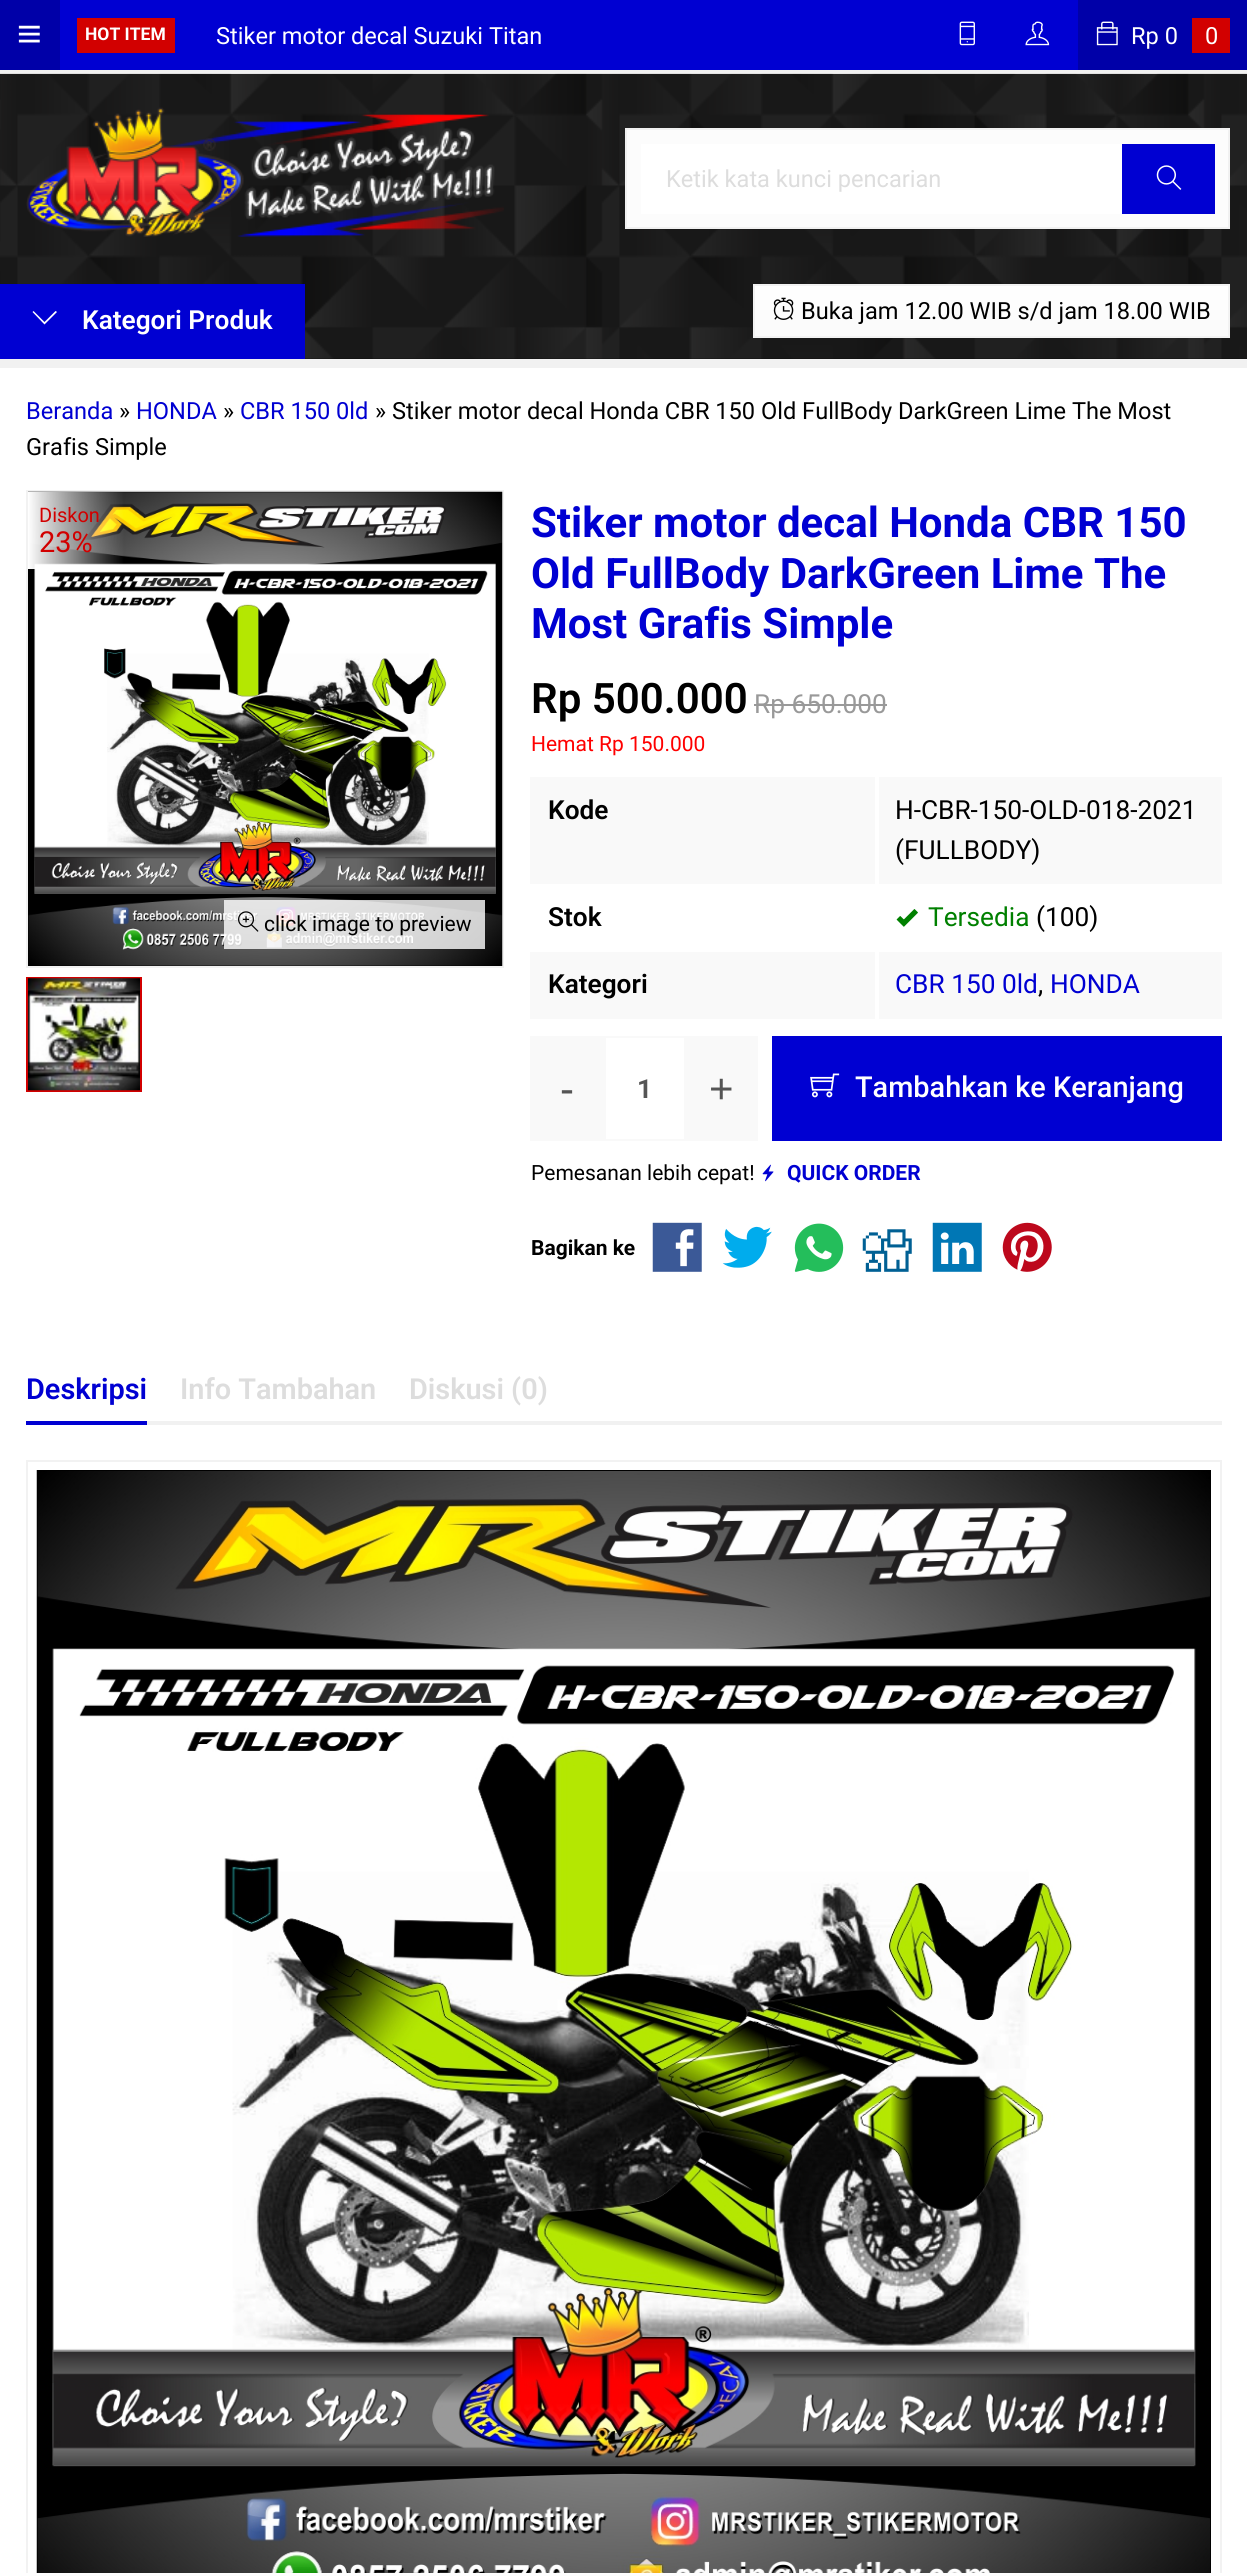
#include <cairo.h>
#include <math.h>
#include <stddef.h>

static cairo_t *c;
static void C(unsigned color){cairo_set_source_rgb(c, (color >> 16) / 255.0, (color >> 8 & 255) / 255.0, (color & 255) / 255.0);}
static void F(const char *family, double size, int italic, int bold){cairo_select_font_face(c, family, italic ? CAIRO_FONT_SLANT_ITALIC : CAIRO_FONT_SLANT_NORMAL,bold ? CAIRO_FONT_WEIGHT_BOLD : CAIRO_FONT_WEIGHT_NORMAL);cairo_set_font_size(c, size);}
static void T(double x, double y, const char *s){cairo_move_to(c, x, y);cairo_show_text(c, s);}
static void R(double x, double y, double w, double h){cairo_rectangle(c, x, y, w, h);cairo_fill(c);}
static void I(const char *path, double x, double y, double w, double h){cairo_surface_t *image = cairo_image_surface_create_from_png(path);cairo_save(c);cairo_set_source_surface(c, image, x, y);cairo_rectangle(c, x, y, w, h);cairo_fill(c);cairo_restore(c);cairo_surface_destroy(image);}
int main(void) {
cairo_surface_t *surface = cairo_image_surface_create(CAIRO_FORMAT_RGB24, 1247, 2573);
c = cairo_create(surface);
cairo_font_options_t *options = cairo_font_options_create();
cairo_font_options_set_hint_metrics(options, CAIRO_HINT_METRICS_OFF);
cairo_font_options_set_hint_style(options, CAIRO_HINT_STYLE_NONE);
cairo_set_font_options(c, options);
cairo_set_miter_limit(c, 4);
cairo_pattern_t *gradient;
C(0xf1f1f1);
cairo_paint(c);
C(0x0000d2);
R(60,0,1018,70);
C(0x0000a8);
R(0,0,60,70);
I("1.png",18,25,22,18);
C(0xd20000);
R(77,18,98,35);
F("Roboto",17.5,0,1);
C(0xffffff);
T(85,40,"HOT ITEM");
F("Roboto",23.6,0,0);
T(216,44,"Stiker motor decal Suzuki Titan");
I("2.png",959,21,16,25);
I("3.png",1025,21,25,25);
C(0x0000a8);
R(1078,0,169,70);
I("4.png",1096,21,22,25);
C(0xffffff);
T(1131,44,"Rp 0");
C(0xd20000);
R(1192,18,38,35);
C(0xffffff);
T(1205,44,"0");
C(0x020202);
R(0,74,1247,285);
I("5.png",0,73,1247,286);
I("6.png",26,107,478,130);
C(0xfcfcfc);
cairo_rectangle(c,626,129,603,99);
cairo_fill_preserve(c);
C(0xf1f1f1);
cairo_stroke(c);
C(0xffffff);
R(641,144,481,70);
C(0xdddddd);
T(666,187,"Ketik kata kunci pencarian");
C(0x0000d2);
R(1122,144,93,70);
I("7.png",1156,165,26,25);
R(0,284,305,75);
C(0xffffff);
cairo_new_path(c);
cairo_move_to(c,57,312);
cairo_line_to(c,44.5,324.5);
cairo_line_to(c,32.5,312);
cairo_line_to(c,33.5,311);
cairo_line_to(c,44.5,322);
cairo_line_to(c,55.5,311);
cairo_close_path(c);
cairo_fill(c);
F("Roboto SemiBold",26.25,0,0);
T(82,329,"Kategori Produk");
gradient = cairo_pattern_create_linear(991,336,991,285);
cairo_pattern_add_color_stop_rgba(gradient,0,0.98,0.98,0.98,1);
cairo_pattern_add_color_stop_rgba(gradient,1,1,1,1,1);
cairo_set_source(c,gradient);
cairo_pattern_destroy(gradient);
R(755,286,473,50);
cairo_rectangle(c,754,285,475,52);
C(0xf2f2f2);
cairo_stroke(c);
I("8.png",773,297,21,23);
F("Roboto",23.6,0,0);
C(0x000000);
T(801,319,"Buka jam 12.00 WIB s/d jam 18.00 WIB");
C(0xffffff);
R(0,368,1247,2205);
C(0x0000d2);
T(26,419,"Beranda");
C(0x000000);
T(119,419,"»");
C(0x0000d2);
T(136,419,"HONDA");
C(0x000000);
T(223,419,"»");
C(0x0000d2);
T(240,419,"CBR 150 0ld");
C(0x000000);
T(375,419,"» Stiker motor decal Honda CBR 150 Old FullBody DarkGreen Lime The Most");
T(26,455,"Grafis Simple");
cairo_rectangle(c,27,491,476,476);
C(0xf2f2f2);
cairo_stroke(c);
I("9.png",28,491,475,475);
F("Roboto",20,0,0);
C(0xd20000);
T(39,522,"Diskon");
F("Roboto",28.9,0,0);
T(39,552,"23%");
cairo_set_source_rgba(c,1,1,1,0.8);
R(224,900,261,49);
I("10.png",238,911,21,21);
F("Roboto",21,0,0);
C(0x000000);
T(264,931,"click image to preview");
cairo_rectangle(c,27,978,114,113);
C(0xd20000);
cairo_stroke(c);
I("11.png",28,978,112,113);
F("Roboto",42,0,1);
C(0x0000d2);
T(531,537,"Stiker motor decal Honda CBR 150");
T(531,588,"Old FullBody DarkGreen Lime The");
T(531,638,"Most Grafis Simple");
F("Roboto SemiBold",42,0,0);
C(0x000000);
T(531,713,"Rp 500.000");
F("Roboto",26.25,0,0);
C(0x999999);
T(754,713,"Rp 650.000");
R(754,704,133,2);
F("Roboto",21,0,0);
C(0xff0000);
T(531,751,"Hemat Rp 150.000");
C(0xf9f9f9);
R(530,777,692,107);
F("Roboto SemiBold",26.25,0,0);
C(0x000000);
T(548,819,"Kode");
F("Roboto",26.25,0,0);
T(895,819,"H-CBR-150-OLD-018-2021");
T(895,859,"(FULLBODY)");
C(0xffffff);
R(875,775,4,111);
F("Roboto SemiBold",26.25,0,0);
C(0x000000);
T(548,926,"Stok");
I("12.png",896,909,22,18);
F("Roboto",26.25,0,0);
C(0x008000);
T(928,926,"Tersedia");
C(0x000000);
T(1036,926,"(100)");
C(0xf9f9f9);
R(530,952,692,67);
C(0xffffff);
R(875,950,4,70);
F("Roboto SemiBold",26.25,0,0);
C(0x000000);
T(548,993,"Kategori");
F("Roboto",26.25,0,0);
C(0x0000d2);
T(895,993,"CBR 150 0ld");
C(0x000000);
T(1038,993,",");
C(0x0000d2);
T(1050,993,"HONDA");
C(0xf9f9f9);
R(530,1036,74,105);
F("Liberation Sans",42,0,0);
C(0x555555);
T(560,1103,"-");
cairo_rectangle(c,605,1037,80,103);
C(0xf9f9f9);
cairo_stroke(c);
F("Roboto",26.25,0,1);
C(0x555555);
T(637,1098,"1");
C(0xf9f9f9);
R(686,1036,72,105);
F("Liberation Sans",42,0,0);
C(0x555555);
T(709,1103,"+");
C(0x0000d2);
R(772,1036,450,105);
I("13.png",810,1073,30,25);
F("Roboto Medium",28.9,0,0);
C(0xffffff);
T(855,1097,"Tambahkan ke Keranjang");
F("Roboto",21,0,0);
C(0x000000);
T(531,1180,"Pemesanan lebih cepat!");
I("14.png",762,1164,12,18);
F("Roboto",21,0,1);
C(0x0000d2);
T(787,1180,"QUICK ORDER");
C(0x000000);
T(531,1255,"Bagikan ke");
I("15.png",652,1222,50,50);
I("16.png",722,1226,50,42);
I("17.png",794,1223,50,49);
I("18.png",862,1229,50,43);
I("19.png",932,1222,50,50);
I("20.png",1002,1222,50,50);
C(0xf1f1f1);
R(147,1421,1075,4);
C(0x0000d2);
R(26,1421,121,4);
F("Roboto SemiBold",28.9,0,0);
T(26,1399,"Deskripsi");
C(0xdddddd);
T(180,1399,"Info Tambahan");
T(409,1399,"Diskusi (0)");
cairo_rectangle(c,27,1461,1194,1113);
C(0xf2f2f2);
cairo_stroke(c);
I("21.png",36,1470,1175,1103);
cairo_surface_write_to_png(surface, "o.png");
cairo_font_options_destroy(options);
cairo_destroy(c);
cairo_surface_destroy(surface);
return 0;
}
